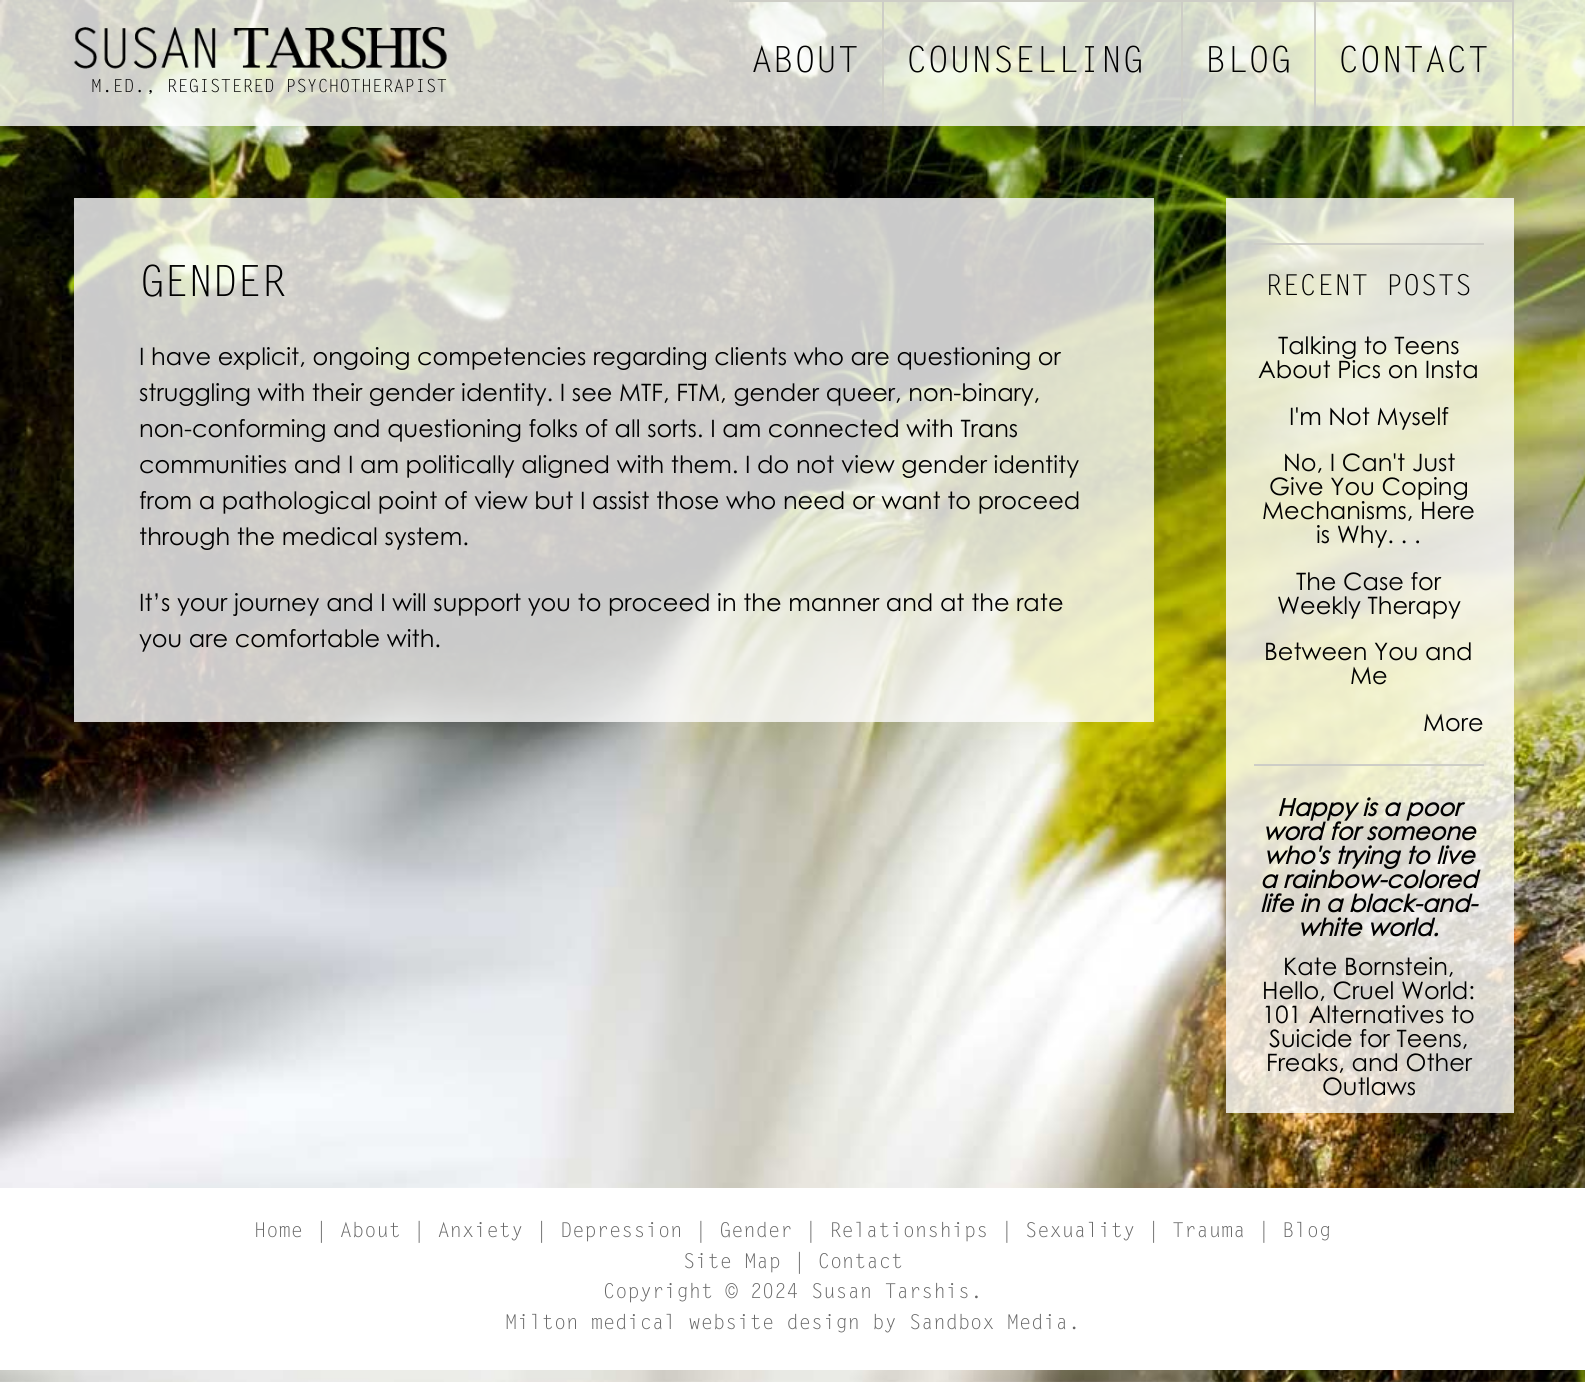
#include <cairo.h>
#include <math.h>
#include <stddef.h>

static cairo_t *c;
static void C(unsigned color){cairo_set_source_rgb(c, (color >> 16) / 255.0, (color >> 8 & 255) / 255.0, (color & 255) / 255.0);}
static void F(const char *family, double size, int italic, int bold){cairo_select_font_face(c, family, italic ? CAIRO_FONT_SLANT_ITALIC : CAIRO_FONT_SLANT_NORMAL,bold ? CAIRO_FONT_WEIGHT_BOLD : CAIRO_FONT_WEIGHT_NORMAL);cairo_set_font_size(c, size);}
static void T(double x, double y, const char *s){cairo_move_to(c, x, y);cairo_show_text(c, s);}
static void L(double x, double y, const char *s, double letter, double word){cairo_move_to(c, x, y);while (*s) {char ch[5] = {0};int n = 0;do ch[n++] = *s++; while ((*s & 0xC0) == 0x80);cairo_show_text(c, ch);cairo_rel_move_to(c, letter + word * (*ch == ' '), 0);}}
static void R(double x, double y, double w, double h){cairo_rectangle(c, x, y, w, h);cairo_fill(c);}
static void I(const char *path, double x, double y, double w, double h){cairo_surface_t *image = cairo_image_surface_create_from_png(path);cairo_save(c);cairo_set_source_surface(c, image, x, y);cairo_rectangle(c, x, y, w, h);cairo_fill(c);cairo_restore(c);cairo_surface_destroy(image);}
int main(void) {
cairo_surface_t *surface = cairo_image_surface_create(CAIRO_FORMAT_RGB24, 1585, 1382);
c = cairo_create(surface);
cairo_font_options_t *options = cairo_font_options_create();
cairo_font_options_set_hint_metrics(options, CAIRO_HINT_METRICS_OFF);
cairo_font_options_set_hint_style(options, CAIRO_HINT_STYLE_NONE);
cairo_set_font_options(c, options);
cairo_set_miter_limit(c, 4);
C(0xffffff);
cairo_paint(c);
I("1.png",0,0,1585,1382);
cairo_set_source_rgba(c,1,1,1,0.79);
R(0,0,1585,126);
C(0xcdcdc6);
R(729,0,453,2);
R(882,0,2,126);
F("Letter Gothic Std",36,0,0);
C(0x000000);
T(751,72,"ABOUT");
C(0xcdcdc6);
R(1181,0,2,126);
C(0x000000);
T(906,72,"COUNSELLING");
C(0xcdcdc6);
R(1182,0,332,2);
R(1314,0,2,126);
C(0x000000);
T(1205,72,"BLOG");
C(0xcdcdc6);
R(1512,0,2,126);
C(0x000000);
T(1338,72,"CONTACT");
I("2.png",73,27,374,42);
F("Letter Gothic Std",18,0,0);
T(91,92,"M.ED., REGISTERED PSYCHOTHERAPIST");
cairo_set_source_rgba(c,1,1,1,0.79);
R(74,198,1080,524);
F("Letter Gothic Std",43,0,0);
C(0x000000);
L(139,296,"GENDER",-1.5,0);
F("Century Gothic",24,0,0);
T(139,365,"I have explicit, ongoing competencies regarding clients who are questioning or");
T(139,401,"struggling with their gender identity. I see MTF, FTM, gender queer, non-binary,");
T(139,437,"non-conforming and questioning folks of all sorts. I am connected with Trans");
T(139,473,"communities and I am politically aligned with them. I do not view gender identity");
T(139,509,"from a pathological point of view but I assist those who need or want to proceed");
T(139,545,"through the medical system.");
T(139,611,"It’s your journey and I will support you to proceed in the manner and at the rate");
T(139,647,"you are comfortable with.");
cairo_set_source_rgba(c,1,1,1,0.79);
R(1226,198,288,915);
C(0xcdcdc6);
R(1254,243,230,2);
F("Letter Gothic Std",28.75,0,0);
C(0x000000);
T(1265,295,"RECENT POSTS");
F("Century Gothic",24,0,0);
T(1278,354,"Talking to Teens");
T(1258,378,"About Pics on Insta");
T(1289,425,"I'm Not Myself");
T(1283,471,"No, I Can't Just");
T(1269,495,"Give You Coping");
T(1262,519,"Mechanisms, Here");
T(1316,543,"is Why. . .");
T(1296,590,"The Case for");
T(1277,614,"Weekly Therapy");
T(1264,660,"Between You and");
T(1350,684,"Me");
T(1423,731,"More");
C(0xcdcdc6);
R(1254,764,230,2);
F("Century Gothic",24,1,1);
C(0x000000);
T(1277,816,"Happy is a poor");
T(1263,840,"word for someone");
T(1264,864,"who's trying to live");
T(1260,888,"a rainbow-colored");
T(1260,912,"life in a black-and-");
T(1298,936,"white world.");
F("Century Gothic",24,0,0);
T(1283,975,"Kate Bornstein,");
T(1262,999,"Hello, Cruel World:");
T(1262,1023,"101 Alternatives to");
T(1269,1047,"Suicide for Teens,");
T(1266,1071,"Freaks, and Other");
T(1322,1095,"Outlaws");
C(0xffffff);
R(0,1188,1585,182);
F("Letter Gothic Std",20.4,0,0);
C(0x666666);
T(254,1237,"Home | About | Anxiety | Depression | Gender | Relationships | Sexuality | Trauma | Blog");
T(683,1268,"Site Map | Contact");
T(603,1298,"Copyright © 2024 Susan Tarshis.");
T(505,1329,"Milton medical website design by Sandbox Media.");
cairo_surface_write_to_png(surface, "o.png");
cairo_font_options_destroy(options);
cairo_destroy(c);
cairo_surface_destroy(surface);
return 0;
}
